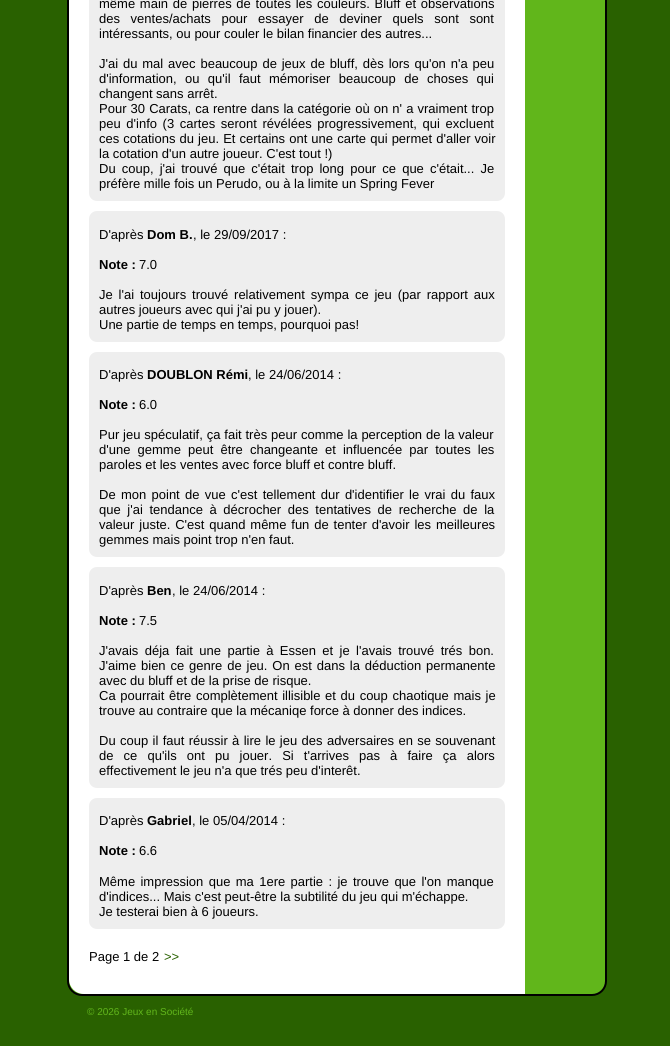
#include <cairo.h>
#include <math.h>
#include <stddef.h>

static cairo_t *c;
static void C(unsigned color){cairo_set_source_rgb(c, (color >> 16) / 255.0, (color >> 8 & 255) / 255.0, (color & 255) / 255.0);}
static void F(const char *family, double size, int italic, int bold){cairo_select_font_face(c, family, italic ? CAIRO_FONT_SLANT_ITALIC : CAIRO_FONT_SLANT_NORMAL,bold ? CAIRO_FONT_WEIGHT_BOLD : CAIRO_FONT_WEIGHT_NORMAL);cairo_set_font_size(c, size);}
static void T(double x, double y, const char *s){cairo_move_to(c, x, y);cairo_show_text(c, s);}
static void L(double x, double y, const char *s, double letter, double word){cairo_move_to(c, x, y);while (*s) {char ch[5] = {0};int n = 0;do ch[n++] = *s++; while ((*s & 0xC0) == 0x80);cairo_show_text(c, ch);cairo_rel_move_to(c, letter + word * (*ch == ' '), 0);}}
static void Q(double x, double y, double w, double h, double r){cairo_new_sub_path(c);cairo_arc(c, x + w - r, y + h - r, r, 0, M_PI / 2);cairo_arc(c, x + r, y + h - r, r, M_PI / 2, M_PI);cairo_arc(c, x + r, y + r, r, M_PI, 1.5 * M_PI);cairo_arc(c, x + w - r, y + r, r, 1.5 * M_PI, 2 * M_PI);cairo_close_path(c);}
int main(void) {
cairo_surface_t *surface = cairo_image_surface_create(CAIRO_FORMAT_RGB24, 670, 1046);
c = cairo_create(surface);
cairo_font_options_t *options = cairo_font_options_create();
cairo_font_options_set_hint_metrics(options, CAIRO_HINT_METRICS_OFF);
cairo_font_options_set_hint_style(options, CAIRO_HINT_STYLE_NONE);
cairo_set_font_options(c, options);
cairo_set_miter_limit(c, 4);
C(0x296100);
cairo_paint(c);
C(0x61b61b);
Q(68,-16,538,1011,14);
cairo_fill_preserve(c);
C(0x000000);
cairo_stroke(c);
C(0xffffff);
cairo_new_path(c);
cairo_move_to(c,84,-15);
cairo_line_to(c,525,-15);
cairo_line_to(c,525,994);
cairo_line_to(c,84,994);
cairo_curve_to(c,75.5,994,69,987.5,69,979);
cairo_line_to(c,69,0);
cairo_curve_to(c,69,-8.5,75.5,-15,84,-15);
cairo_close_path(c);
cairo_fill(c);
C(0xeeeeee);
Q(89,-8,416,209,8);
cairo_fill(c);
F("Liberation Sans",13,0,0);
C(0x000000);
L(99,8,"même main de pierres de toutes les couleurs. Bluff et observations",0,1.1);
L(99,23,"des ventes/achats pour essayer de deviner quels sont sont",0,7);
T(99,38,"intéressants, ou pour couler le bilan financier des autres...");
L(99,68,"J'ai du mal avec beaucoup de jeux de bluff, dès lors qu'on n'a peu",0,1.25);
L(99,83,"d'information, ou qu'il faut mémoriser beaucoup de choses qui",0,4.75);
T(99,98,"changent sans arrêt.");
L(99,113,"Pour 30 Carats, ca rentre dans la catégorie où on n' a vraiment trop",0,.5);
L(99,128,"peu d'info (3 cartes seront révélées progressivement, qui excluent",0,2);
L(99,143,"ces cotations du jeu. Et certains ont une carte qui permet d'aller voir",0,.5);
T(99,158,"la cotation d'un autre joueur. C'est tout !)");
L(99,173,"Du coup, j'ai trouvé que c'était trop long pour ce que c'était... Je",0,2.5);
T(99,188,"préfère mille fois un Perudo, ou à la limite un Spring Fever");
C(0xeeeeee);
Q(89,211,416,131,8);
cairo_fill(c);
C(0x000000);
T(99,239,"D'après");
F("Liberation Sans",13,0,1);
T(147,239,"Dom B.");
F("Liberation Sans",13,0,0);
T(193,239,", le 29/09/2017 :");
F("Liberation Sans",13,0,1);
T(99,269,"Note :");
F("Liberation Sans",13,0,0);
T(139,269,"7.0");
L(99,299,"Je l'ai toujours trouvé relativement sympa ce jeu (par rapport aux",0,2.25);
T(99,314,"autres joueurs avec qui j'ai pu y jouer).");
T(99,329,"Une partie de temps en temps, pourquoi pas!");
C(0xeeeeee);
Q(89,352,416,205,8);
cairo_fill(c);
C(0x000000);
T(99,379,"D'après");
F("Liberation Sans",13,0,1);
T(147,379,"DOUBLON Rémi");
F("Liberation Sans",13,0,0);
T(248,379,", le 24/06/2014 :");
F("Liberation Sans",13,0,1);
T(99,409,"Note :");
F("Liberation Sans",13,0,0);
T(139,409,"6.0");
L(99,439,"Pur jeu spéculatif, ça fait très peur comme la perception de la valeur",0,.25);
L(99,454,"d'une gemme peut être changeante et influencée par toutes les",0,3.5);
T(99,469,"paroles et les ventes avec force bluff et contre bluff.");
L(99,499,"De mon point de vue c'est tellement dur d'identifier le vrai du faux",0,1.7);
L(99,514,"que j'ai tendance à décrocher des tentatives de recherche de la",0,3);
L(99,529,"valeur juste. C'est quand même fun de tenter d'avoir les meilleures",0,1.25);
T(99,544,"gemmes mais point trop n'en faut.");
C(0xeeeeee);
Q(89,567,416,221,8);
cairo_fill(c);
C(0x000000);
T(99,595,"D'après");
F("Liberation Sans",13,0,1);
T(147,595,"Ben");
F("Liberation Sans",13,0,0);
T(172,595,", le 24/06/2014 :");
F("Liberation Sans",13,0,1);
T(99,625,"Note :");
F("Liberation Sans",13,0,0);
T(139,625,"7.5");
L(99,655,"J'avais déja fait une partie à Essen et je l'avais trouvé trés bon.",0,2.75);
L(99,670,"J'aime bien ce genre de jeu. On est dans la déduction permanente",0,1.25);
T(99,685,"avec du bluff et de la prise de risque.");
L(99,700,"Ca pourrait être complètement illisible et du coup chaotique mais je",0,1);
T(99,715,"trouve au contraire que la mécaniqe force à donner des indices.");
L(99,745,"Du coup il faut réussir à lire le jeu des adversaires en se souvenant",0,.75);
L(99,760,"de ce qu'ils ont pu jouer. Si t'arrives pas à faire ça alors",0,6.5);
T(99,775,"effectivement le jeu n'a que trés peu d'interêt.");
C(0xeeeeee);
Q(89,798,416,131,8);
cairo_fill(c);
C(0x000000);
T(99,825,"D'après");
F("Liberation Sans",13,0,1);
T(147,825,"Gabriel");
F("Liberation Sans",13,0,0);
T(192,825,", le 05/04/2014 :");
F("Liberation Sans",13,0,1);
T(99,855,"Note :");
F("Liberation Sans",13,0,0);
T(139,855,"6.6");
L(99,886,"Même impression que ma 1ere partie : je trouve que l'on manque",0,1.75);
T(99,901,"d'indices... Mais c'est peut-être la subtilité du jeu qui m'échappe.");
T(99,916,"Je testerai bien à 6 joueurs.");
T(89,961,"Page 1 de 2");
C(0x296100);
T(164,961,">>");
F("Liberation Sans",10,0,0);
C(0x61b61b);
T(87,1015,"© 2026 Jeux en Société");
cairo_surface_write_to_png(surface, "o.png");
cairo_font_options_destroy(options);
cairo_destroy(c);
cairo_surface_destroy(surface);
return 0;
}
